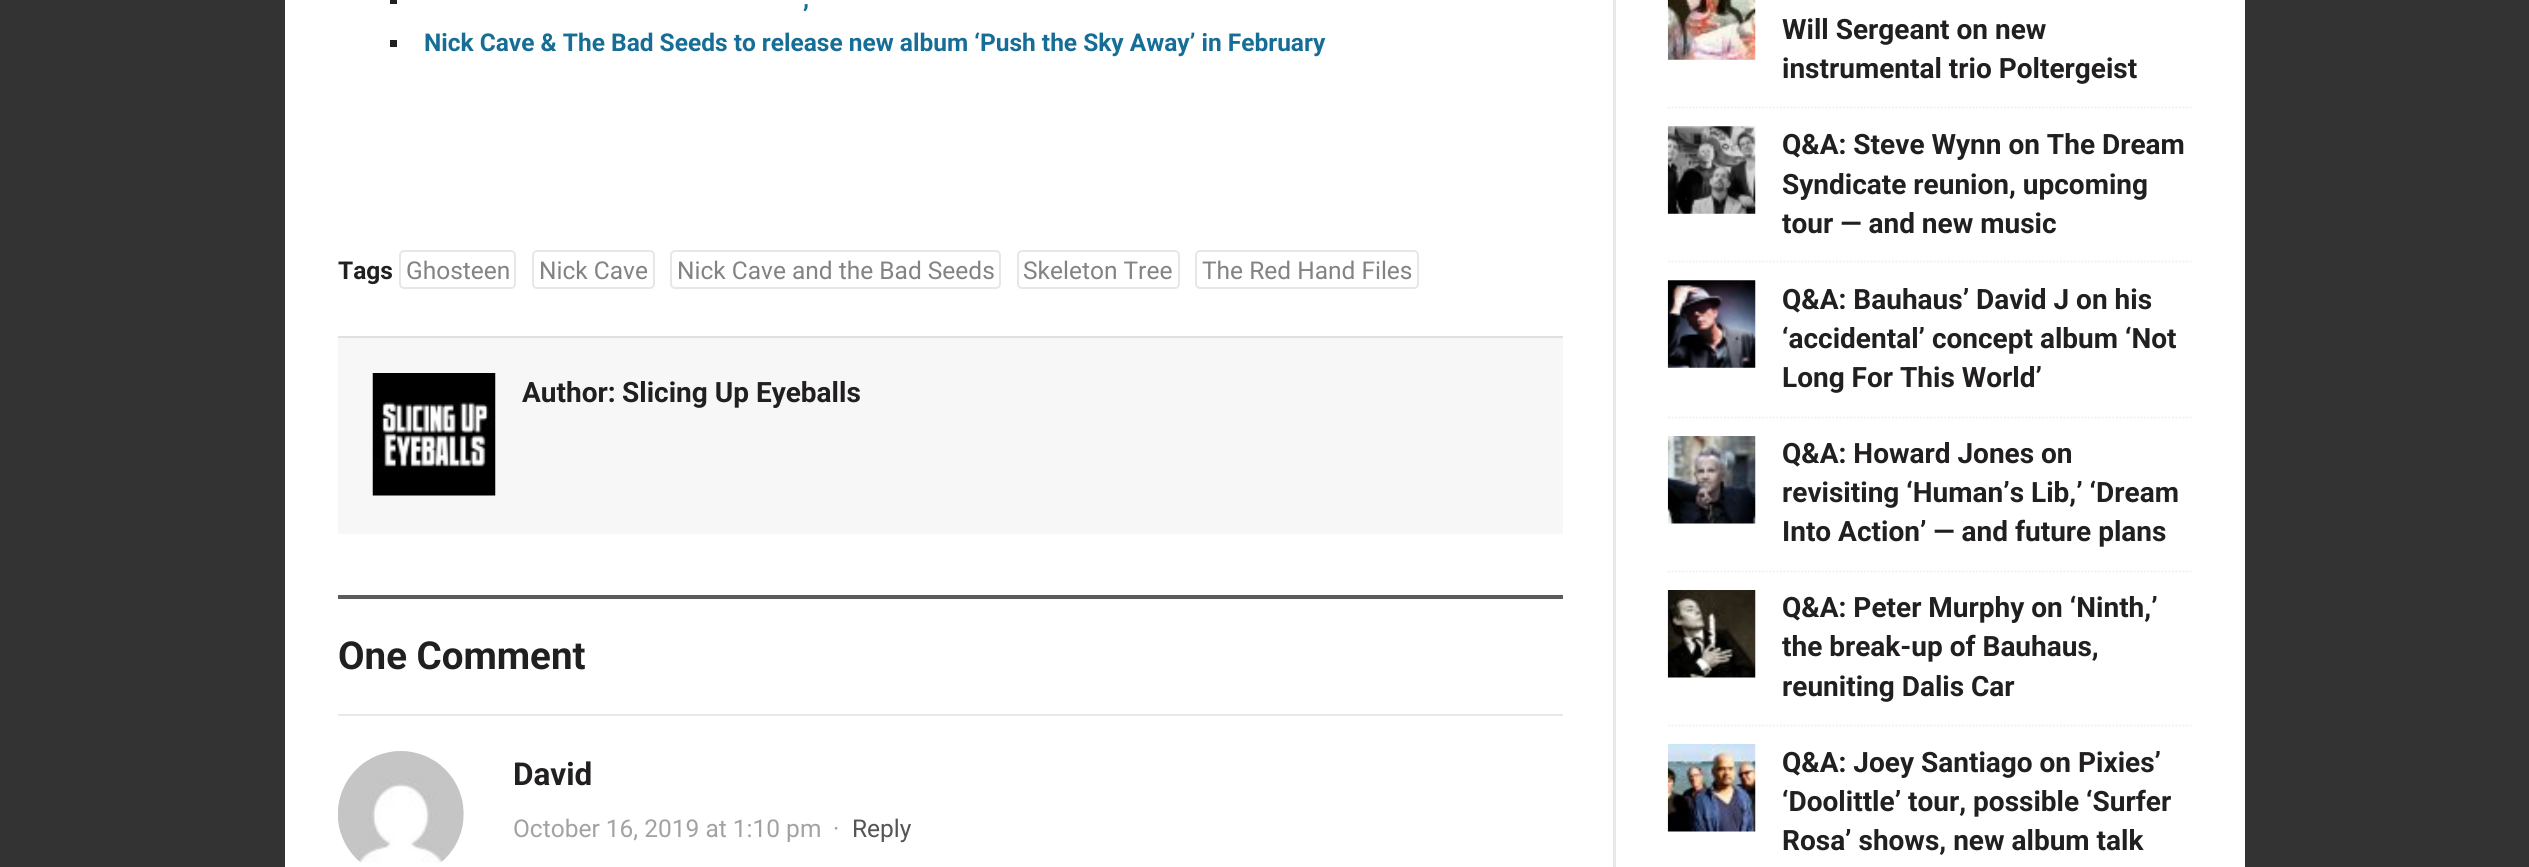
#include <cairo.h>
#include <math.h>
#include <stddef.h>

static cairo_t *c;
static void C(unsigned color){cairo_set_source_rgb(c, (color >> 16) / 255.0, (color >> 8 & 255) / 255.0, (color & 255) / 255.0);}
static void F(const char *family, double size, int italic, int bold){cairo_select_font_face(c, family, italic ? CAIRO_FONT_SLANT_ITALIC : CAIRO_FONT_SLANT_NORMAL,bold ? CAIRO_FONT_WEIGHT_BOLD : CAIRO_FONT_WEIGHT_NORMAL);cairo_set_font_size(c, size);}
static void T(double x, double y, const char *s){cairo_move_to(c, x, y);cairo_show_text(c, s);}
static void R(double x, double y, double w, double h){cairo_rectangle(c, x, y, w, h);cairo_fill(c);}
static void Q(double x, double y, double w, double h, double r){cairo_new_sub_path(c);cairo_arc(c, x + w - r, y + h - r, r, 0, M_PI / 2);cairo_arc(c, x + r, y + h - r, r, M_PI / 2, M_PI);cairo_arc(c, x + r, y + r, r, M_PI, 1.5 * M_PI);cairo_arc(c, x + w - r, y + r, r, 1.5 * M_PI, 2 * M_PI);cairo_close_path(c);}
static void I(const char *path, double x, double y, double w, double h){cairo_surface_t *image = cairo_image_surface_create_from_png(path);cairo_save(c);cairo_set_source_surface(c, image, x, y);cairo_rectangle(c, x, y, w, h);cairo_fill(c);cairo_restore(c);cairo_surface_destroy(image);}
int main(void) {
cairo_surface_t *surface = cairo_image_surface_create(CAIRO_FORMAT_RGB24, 2529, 867);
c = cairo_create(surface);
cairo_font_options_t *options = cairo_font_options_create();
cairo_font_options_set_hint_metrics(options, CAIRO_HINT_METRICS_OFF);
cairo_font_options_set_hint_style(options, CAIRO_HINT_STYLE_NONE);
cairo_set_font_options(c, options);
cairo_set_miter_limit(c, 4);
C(0x333333);
cairo_paint(c);
C(0xffffff);
R(285,0,1960,867);
C(0xe8e8e8);
R(1613,0,3,867);
C(0x211f1f);
R(390,0,7,4);
F("Roboto",24.5,0,1);
C(0x166e96);
T(803,7,",");
C(0x211f1f);
R(390,40,7,7);
C(0x166e96);
T(424,51,"Nick Cave & The Bad Seeds to release new album ‘Push the Sky Away’ in February");
C(0x211f1f);
T(338,279,"Tags");
Q(400,251,115,37,4);
C(0xe7e7e7);
cairo_stroke(c);
F("Roboto",24.5,0,0);
C(0x838383);
T(406,279,"Ghosteen");
Q(533,251,121,37,4);
C(0xe7e7e7);
cairo_stroke(c);
C(0x838383);
T(539,279,"Nick Cave");
Q(671,251,329,37,4);
C(0xe7e7e7);
cairo_stroke(c);
C(0x838383);
T(677,279,"Nick Cave and the Bad Seeds");
Q(1018,251,161,37,4);
C(0xe7e7e7);
cairo_stroke(c);
C(0x838383);
T(1023,279,"Skeleton Tree");
Q(1196,251,222,37,4);
C(0xe7e7e7);
cairo_stroke(c);
C(0x838383);
T(1202,279,"The Red Hand Files");
C(0xf7f7f7);
R(338,338,1225,196);
C(0xe0e0e0);
R(338,336,1225,2);
I("1.png",372,373,124,123);
F("Roboto",28,0,1);
C(0x211f1f);
T(522,402,"Author:");
T(622,402,"Slicing Up Eyeballs");
C(0x5b5b5b);
R(338,595,1225,4);
C(0xe8e8e8);
R(338,714,1225,2);
F("Roboto",38.5,0,1);
C(0x211f1f);
T(338,669,"One Comment");
I("2.png",338,751,126,112);
F("Roboto",31.5,0,1);
T(513,785,"David");
F("Roboto",24.5,0,0);
C(0xa2a2a2);
T(513,837,"October 16, 2019 at 1:10 pm");
T(833,837,"·");
C(0x555555);
T(852,837,"Reply");
cairo_new_path(c);
cairo_move_to(c,1668,107.5);
cairo_line_to(c,2193,107.5);
C(0xefefef);
cairo_set_line_width(c,1.8);
cairo_set_dash(c,(double[]){1.75,1.75},2,0);
cairo_stroke(c);
I("3.png",1667,0,89,60);
F("Roboto",28,0,1);
C(0x211f1f);
T(1782,39,"Will Sergeant on new");
T(1782,78,"instrumental trio Poltergeist");
cairo_new_path(c);
cairo_move_to(c,1668,261.5);
cairo_line_to(c,2193,261.5);
C(0xefefef);
cairo_stroke(c);
I("4.png",1667,126,89,88);
C(0x211f1f);
T(1782,154,"Q&A: Steve Wynn on The Dream");
T(1782,194,"Syndicate reunion, upcoming");
T(1782,233,"tour — and new music");
cairo_new_path(c);
cairo_move_to(c,1668,417.5);
cairo_line_to(c,2193,417.5);
C(0xefefef);
cairo_stroke(c);
I("5.png",1667,280,89,88);
C(0x211f1f);
T(1782,309,"Q&A: Bauhaus’ David J on his");
T(1782,348,"‘accidental’ concept album ‘Not");
T(1782,387,"Long For This World’");
cairo_new_path(c);
cairo_move_to(c,1668,571.5);
cairo_line_to(c,2193,571.5);
C(0xefefef);
cairo_stroke(c);
I("6.png",1667,436,89,88);
C(0x211f1f);
T(1782,463,"Q&A: Howard Jones on");
T(1782,502,"revisiting ‘Human’s Lib,’ ‘Dream");
T(1782,541,"Into Action’ — and future plans");
cairo_new_path(c);
cairo_move_to(c,1668,725.5);
cairo_line_to(c,2193,725.5);
C(0xefefef);
cairo_stroke(c);
I("7.png",1667,590,89,88);
C(0x211f1f);
T(1782,617,"Q&A: Peter Murphy on ‘Ninth,’");
T(1782,656,"the break-up of Bauhaus,");
T(1782,696,"reuniting Dalis Car");
I("8.png",1667,744,89,88);
T(1782,772,"Q&A: Joey Santiago on Pixies’");
T(1782,811,"‘Doolittle’ tour, possible ‘Surfer");
T(1782,850,"Rosa’ shows, new album talk");
cairo_surface_write_to_png(surface, "o.png");
cairo_font_options_destroy(options);
cairo_destroy(c);
cairo_surface_destroy(surface);
return 0;
}
